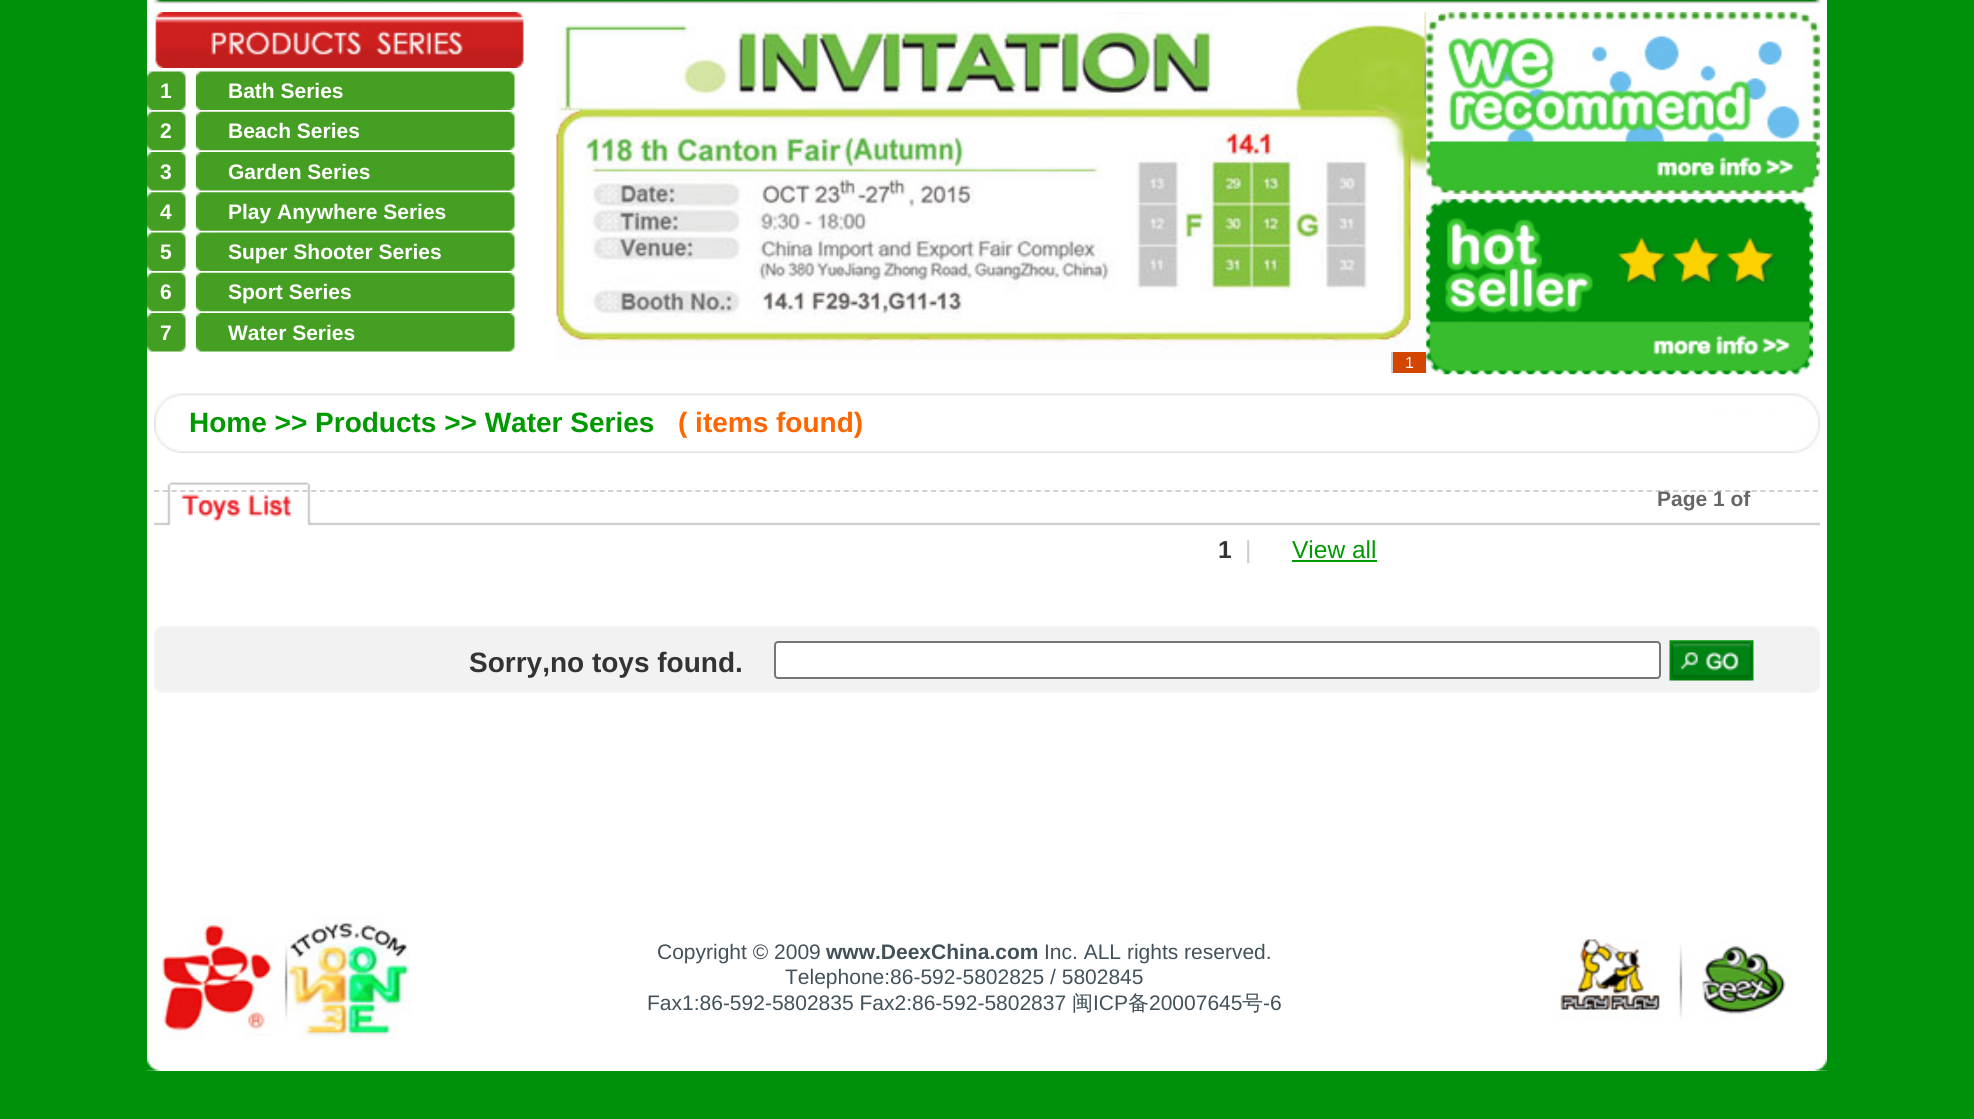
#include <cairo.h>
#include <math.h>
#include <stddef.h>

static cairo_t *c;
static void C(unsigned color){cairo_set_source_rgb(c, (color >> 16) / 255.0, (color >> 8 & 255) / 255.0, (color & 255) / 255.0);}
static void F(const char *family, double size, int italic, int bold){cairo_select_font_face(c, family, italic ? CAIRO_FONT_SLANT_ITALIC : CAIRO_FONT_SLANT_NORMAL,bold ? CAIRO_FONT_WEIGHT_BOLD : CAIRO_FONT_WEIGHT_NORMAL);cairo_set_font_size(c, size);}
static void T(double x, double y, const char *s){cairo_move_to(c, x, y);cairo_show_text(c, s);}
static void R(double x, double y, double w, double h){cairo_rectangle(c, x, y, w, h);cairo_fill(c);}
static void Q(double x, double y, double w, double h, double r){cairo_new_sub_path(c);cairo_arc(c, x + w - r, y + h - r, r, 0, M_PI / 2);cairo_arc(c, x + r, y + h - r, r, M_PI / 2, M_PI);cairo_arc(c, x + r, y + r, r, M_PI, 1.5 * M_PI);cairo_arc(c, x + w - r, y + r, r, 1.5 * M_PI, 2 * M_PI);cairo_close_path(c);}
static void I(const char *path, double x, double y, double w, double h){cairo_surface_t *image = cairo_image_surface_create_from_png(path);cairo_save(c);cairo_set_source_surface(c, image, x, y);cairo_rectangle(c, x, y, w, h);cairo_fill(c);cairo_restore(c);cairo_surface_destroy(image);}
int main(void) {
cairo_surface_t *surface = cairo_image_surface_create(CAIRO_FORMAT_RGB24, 1974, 1119);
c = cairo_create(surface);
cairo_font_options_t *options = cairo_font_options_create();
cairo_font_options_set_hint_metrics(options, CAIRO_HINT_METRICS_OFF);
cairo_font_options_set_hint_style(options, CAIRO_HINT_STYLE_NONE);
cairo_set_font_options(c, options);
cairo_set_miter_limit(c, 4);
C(0x00910c);
cairo_paint(c);
C(0xffffff);
R(147,0,1680,1071);
I("1.png",153,0,1668,4);
I("2.png",147,12,378,56);
I("3.png",147,71,39,39);
F("Liberation Sans",21,0,1);
T(160,98,"1");
I("4.png",196,71,319,39);
T(228,98,"Bath Series");
I("5.png",147,111,39,40);
T(160,138,"2");
I("6.png",196,111,319,40);
T(228,138,"Beach Series");
I("7.png",147,152,39,39);
T(160,179,"3");
I("8.png",196,152,319,39);
T(228,179,"Garden Series");
I("9.png",147,192,39,39);
T(160,219,"4");
I("10.png",196,192,319,39);
T(228,219,"Play Anywhere Series");
I("3.png",147,232,39,39);
T(160,259,"5");
I("4.png",196,232,319,39);
T(228,259,"Super Shooter Series");
I("5.png",147,272,39,40);
T(160,299,"6");
I("6.png",196,272,319,40);
T(228,299,"Sport Series");
I("7.png",147,313,39,39);
T(160,340,"7");
I("8.png",196,313,319,39);
T(228,340,"Water Series");
I("11.png",1426,12,394,182);
I("12.png",1426,199,387,176);
I("13.png",556,12,871,348);
C(0xd34600);
R(1393,352,33,21);
F("Liberation Sans",16,0,0);
C(0xffffff);
T(1405,368,"1");
C(0xcccccc);
R(1391,352,2,21);
I("14.png",154,393,1666,60);
F("Liberation Sans",28,0,1);
C(0x009900);
T(189,432,"Home >> Products >> Water Series");
C(0xff6600);
T(678,432,"( items found)");
I("15.png",154,482,1666,44);
cairo_new_path(c);
cairo_move_to(c,154,491);
cairo_line_to(c,1820,491);
C(0xcccccc);
cairo_set_line_width(c,1.8);
cairo_set_dash(c,(double[]){5.25,3.48},2,0);
cairo_stroke(c);
F("Liberation Sans",21,0,1);
C(0x666666);
T(1657,506,"Page 1 of");
F("Liberation Sans",24.5,0,1);
C(0x333333);
T(1218,558,"1");
F("Liberation Sans",24.5,0,0);
C(0xcccccc);
T(1245,558,"|");
C(0x009900);
T(1292,558,"View all");
R(1292,560,85,2);
I("16.png",154,626,1666,67);
F("Liberation Sans",28,0,1);
C(0x333333);
T(469,672,"Sorry,no toys found.");
C(0xffffff);
Q(775,642,885,36,3);
cairo_fill_preserve(c);
C(0x767676);
cairo_set_line_width(c,2);
cairo_set_dash(c,NULL,0,0);
cairo_stroke(c);
I("17.png",1669,640,85,41);
I("18.png",161,915,249,126);
F("Liberation Sans",21,0,0);
C(0x42515a);
T(657,959,"Copyright © 2009");
F("Liberation Sans",21,0,1);
T(826,959,"www.DeexChina.com");
F("Liberation Sans",21,0,0);
T(1044,959,"Inc. ALL rights reserved.");
T(785,984,"Telephone:86-592-5802825 / 5802845");
T(647,1010,"Fax1:86-592-5802835 Fax2:86-592-5802837");
F("WenQuanYi Zen Hei Medium",21,0,0);
T(1072,1010,"闽");
F("Liberation Sans",21,0,0);
T(1093,1010,"ICP");
F("WenQuanYi Zen Hei Medium",21,0,0);
T(1128,1010,"备");
F("Liberation Sans",21,0,0);
T(1149,1010,"20007645");
F("WenQuanYi Zen Hei Medium",21,0,0);
T(1242,1010,"号");
F("Liberation Sans",21,0,0);
T(1263,1010,"-6");
I("19.png",1553,938,233,82);
I("20.png",147,1058,1680,13);
cairo_surface_write_to_png(surface, "o.png");
cairo_font_options_destroy(options);
cairo_destroy(c);
cairo_surface_destroy(surface);
return 0;
}
